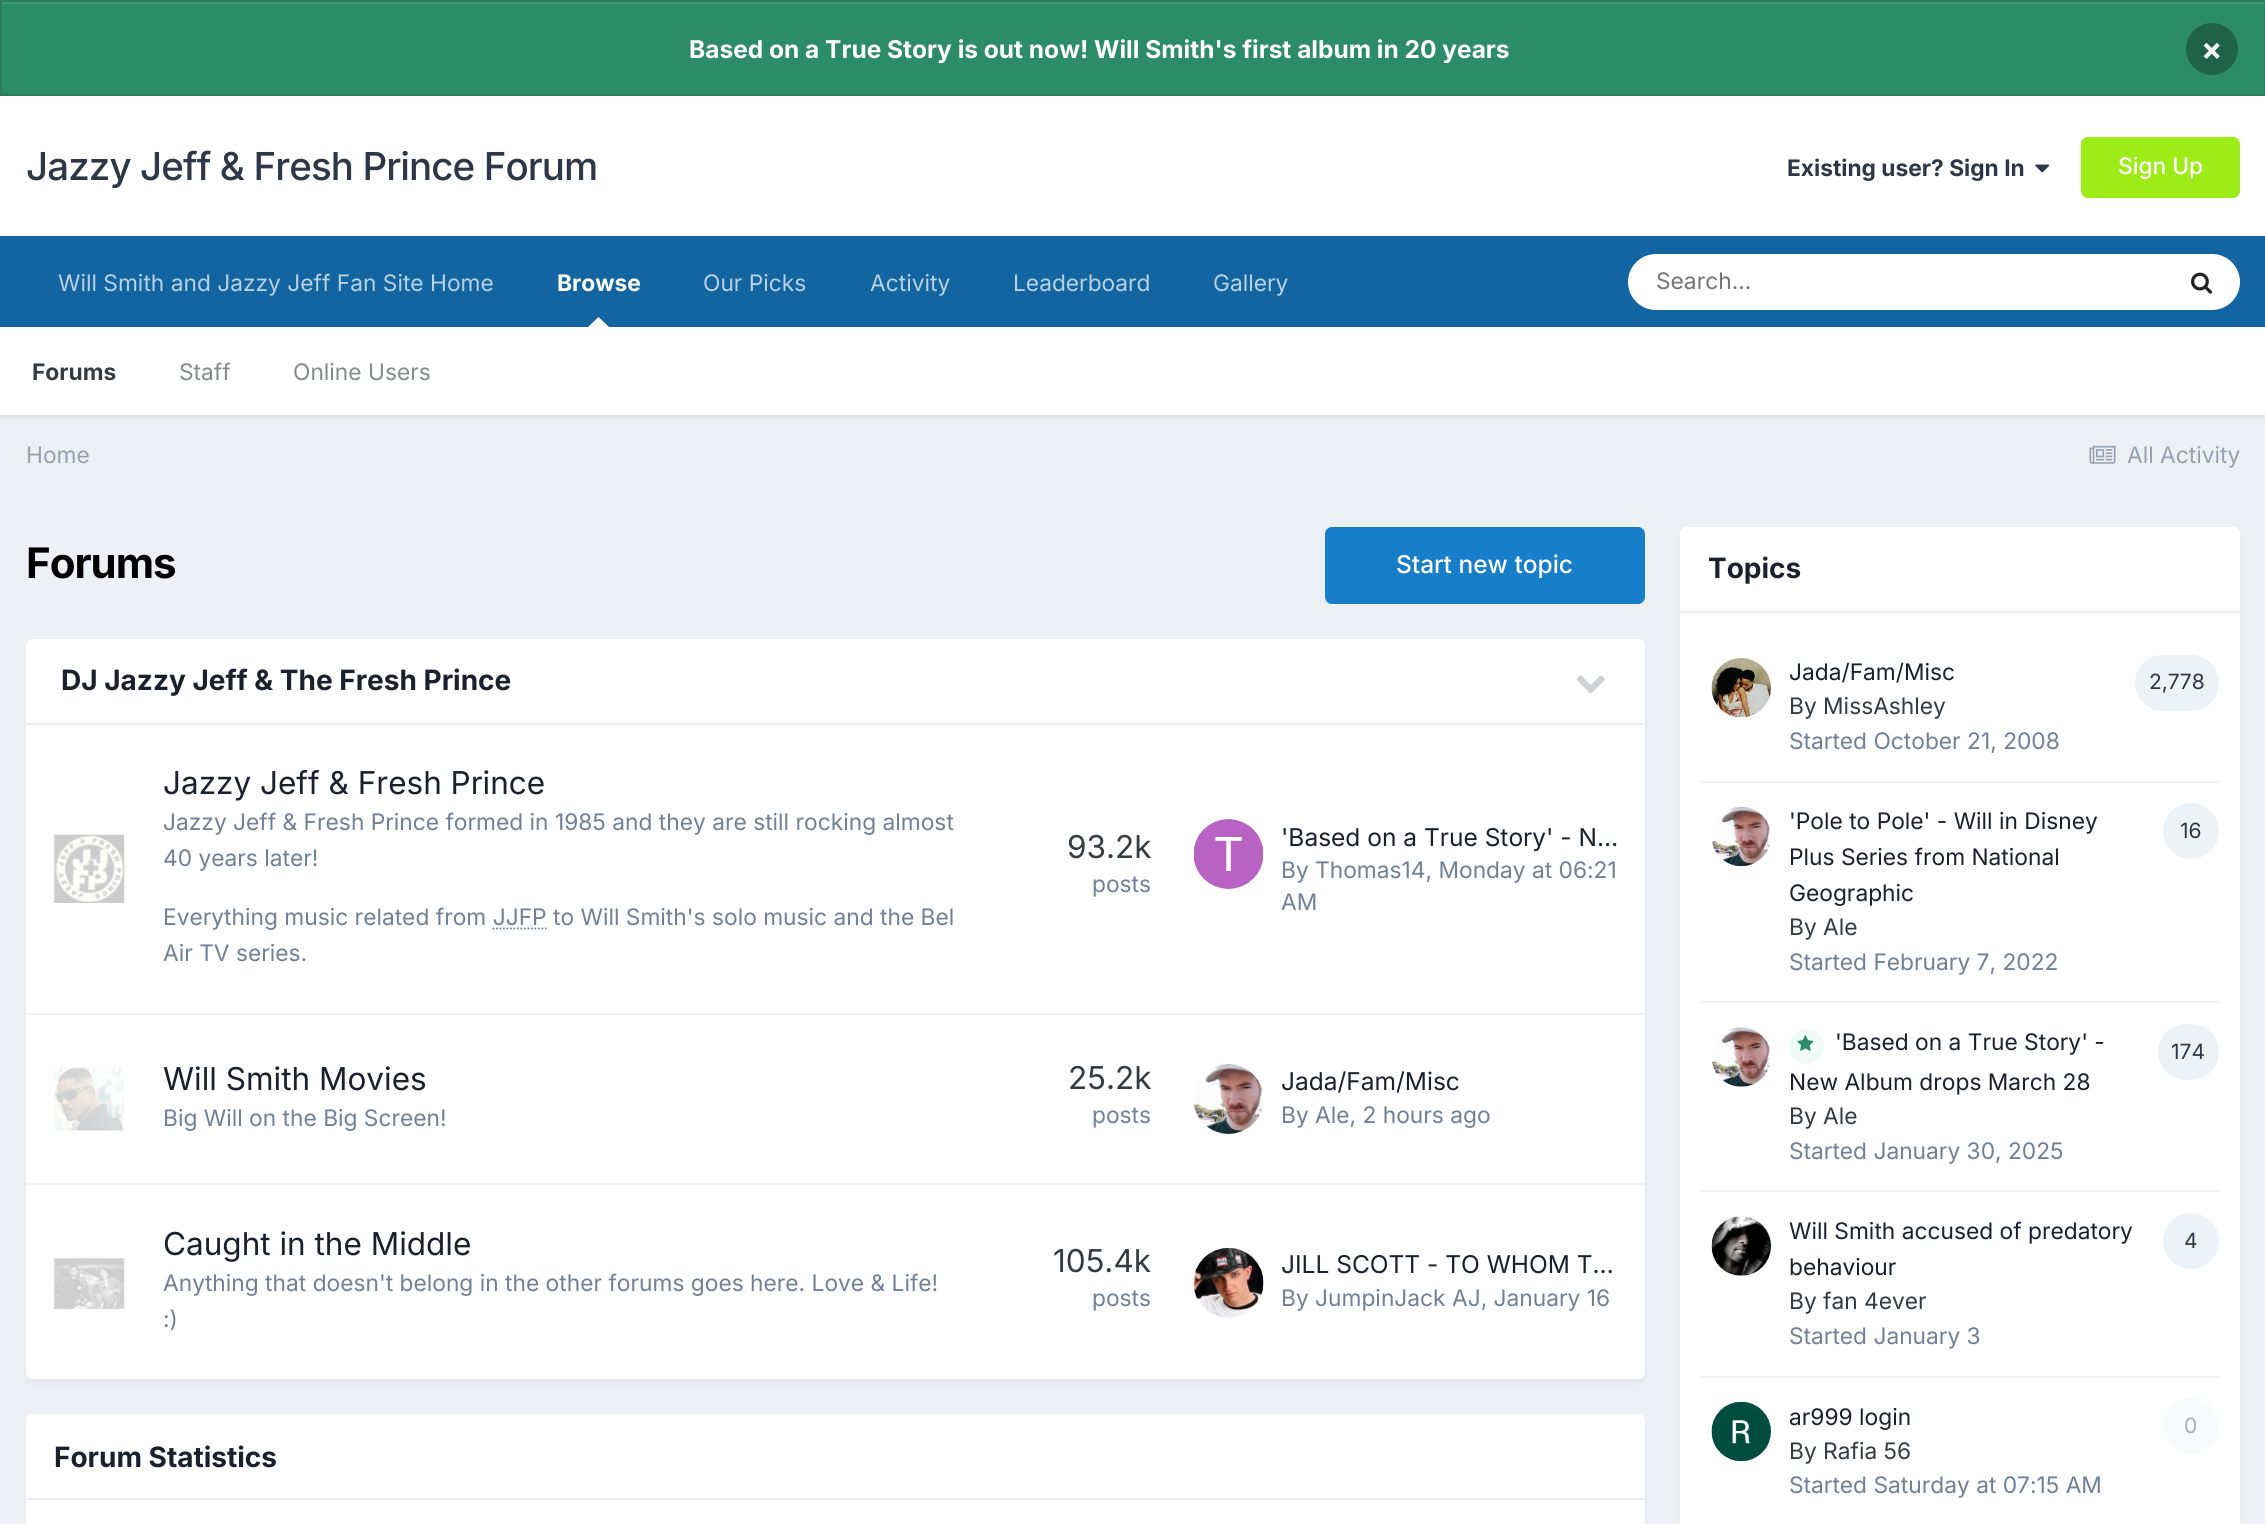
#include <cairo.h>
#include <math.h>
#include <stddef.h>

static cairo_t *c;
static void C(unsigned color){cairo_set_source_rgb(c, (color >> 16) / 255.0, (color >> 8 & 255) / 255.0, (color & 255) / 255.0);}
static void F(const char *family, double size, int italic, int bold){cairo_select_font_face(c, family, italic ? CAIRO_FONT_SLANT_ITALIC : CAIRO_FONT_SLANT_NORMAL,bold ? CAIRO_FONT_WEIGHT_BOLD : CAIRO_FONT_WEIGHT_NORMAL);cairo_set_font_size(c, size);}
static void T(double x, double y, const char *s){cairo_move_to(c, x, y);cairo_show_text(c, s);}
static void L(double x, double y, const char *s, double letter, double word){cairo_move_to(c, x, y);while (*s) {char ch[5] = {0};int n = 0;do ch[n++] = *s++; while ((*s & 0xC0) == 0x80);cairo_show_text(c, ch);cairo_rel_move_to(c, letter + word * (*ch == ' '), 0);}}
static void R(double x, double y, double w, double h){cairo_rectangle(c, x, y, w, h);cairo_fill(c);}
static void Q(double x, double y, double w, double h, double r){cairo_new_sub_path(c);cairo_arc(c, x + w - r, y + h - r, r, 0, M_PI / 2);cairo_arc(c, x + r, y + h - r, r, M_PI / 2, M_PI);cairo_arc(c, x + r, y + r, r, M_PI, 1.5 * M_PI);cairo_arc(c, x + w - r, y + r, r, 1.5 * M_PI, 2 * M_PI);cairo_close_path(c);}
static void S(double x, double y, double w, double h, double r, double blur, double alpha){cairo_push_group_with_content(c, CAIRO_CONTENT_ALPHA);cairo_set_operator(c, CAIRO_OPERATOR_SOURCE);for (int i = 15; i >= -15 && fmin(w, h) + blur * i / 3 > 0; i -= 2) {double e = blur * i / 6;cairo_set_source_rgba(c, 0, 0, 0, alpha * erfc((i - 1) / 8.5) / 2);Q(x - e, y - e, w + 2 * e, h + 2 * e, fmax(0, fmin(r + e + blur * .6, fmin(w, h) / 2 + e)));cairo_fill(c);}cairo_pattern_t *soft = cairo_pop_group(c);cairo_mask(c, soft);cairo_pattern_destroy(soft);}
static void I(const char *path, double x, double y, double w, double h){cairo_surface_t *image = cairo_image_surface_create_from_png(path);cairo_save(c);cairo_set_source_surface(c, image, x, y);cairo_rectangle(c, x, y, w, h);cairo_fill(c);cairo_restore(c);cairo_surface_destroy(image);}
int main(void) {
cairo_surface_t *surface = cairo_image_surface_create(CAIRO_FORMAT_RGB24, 2265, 1524);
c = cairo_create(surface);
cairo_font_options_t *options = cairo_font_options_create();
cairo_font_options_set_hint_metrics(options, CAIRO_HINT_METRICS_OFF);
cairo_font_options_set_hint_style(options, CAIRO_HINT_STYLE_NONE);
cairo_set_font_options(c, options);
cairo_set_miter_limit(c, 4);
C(0xedf0f4);
cairo_paint(c);
C(0x2c8c69);
R(0,0,2265,96);
C(0x419878);
R(2,2,2263,2);
cairo_rectangle(c,1,1,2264,94);
cairo_set_source_rgba(c,0,0,0,0.1);
cairo_stroke(c);
F("Inter",24.5,0,1);
C(0xffffff);
T(689,58,"Based on a True Story is out now! Will Smith's first album in 20 years");
C(0x1f624a);
cairo_new_path(c);
cairo_arc(c,2212,49,26,0,2 * M_PI);
cairo_fill(c);
F("Inter",31.5,0,1);
C(0xffffff);
T(2201,60,"×");
R(0,96,2265,140);
F("Inter Medium",38.5,0,0);
C(0x2d3748);
L(26,180,"Jazzy Jeff & Fresh Prince Forum",-.9,0);
F("Inter",22.75,0,1);
T(1787,176,"Existing user? Sign In");
I("1.png",2035,164,15,9);
C(0x9dec17);
Q(2081,137,159,61,7);
cairo_fill(c);
F("Inter Medium",22.75,0,0);
C(0xffffff);
T(2118,174,"Sign Up");
C(0x1265a1);
R(0,236,2265,91);
F("Inter",22.75,0,0);
C(0xb8d1e3);
T(58,291,"Will Smith and Jazzy Jeff Fan Site Home");
T(703,291,"Our Picks");
T(870,291,"Activity");
F("Inter",22.75,0,1);
C(0xffffff);
T(557,291,"Browse");
C(0x000000);
S(0,329,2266,88,0,2,.1);
C(0xffffff);
cairo_new_path(c);
cairo_move_to(c,609,327);
cairo_line_to(c,588,327);
cairo_line_to(c,598.5,317);
cairo_close_path(c);
cairo_fill(c);
R(0,327,2265,88);
C(0x353c41);
T(32,380,"Forums");
F("Inter",22.75,0,0);
C(0x868a8d);
T(179,380,"Staff");
T(293,380,"Online Users");
C(0xb8d1e3);
T(1013,291,"Leaderboard");
T(1213,291,"Gallery");
C(0xffffff);
Q(1628,254,612,56,28);
cairo_fill(c);
C(0x757575);
T(1656,289,"Search...");
I("2.png",2191,272,22,22);
C(0x96a2b2);
T(26,463,"Home");
I("3.png",2089,445,27,19);
T(2127,463,"All Activity");
F("Inter",42,0,1);
C(0x000000);
L(26,578,"Forums",-1,0);
C(0x177ec9);
Q(1325,527,320,77,7);
cairo_fill(c);
F("Inter Medium",24.5,0,0);
C(0xffffff);
T(1396,573,"Start new topic");
C(0x2d3748);
S(28,644,1615,737,5,3.5,.1);
C(0xffffff);
Q(26,639,1619,740,7);
cairo_fill(c);
cairo_new_path(c);
cairo_move_to(c,33,639);
cairo_line_to(c,1638,639);
cairo_curve_to(c,1642,639,1645,642,1645,646);
cairo_line_to(c,1645,725);
cairo_line_to(c,26,725);
cairo_line_to(c,26,646);
cairo_curve_to(c,26,642,29,639,33,639);
cairo_close_path(c);
cairo_fill(c);
C(0xeaecef);
R(26,723,1619,2);
F("Inter",28,0,1);
C(0x1a202c);
T(61,690,"DJ Jazzy Jeff & The Fresh Prince");
I("4.png",1576,675,29,19);
C(0xf1f2f5);
R(26,1013,1619,2);
I("5.png",54,834,71,69);
F("Inter",31.5,0,0);
C(0x1a202c);
T(163,794,"Jazzy Jeff & Fresh Prince");
F("Inter",22.75,0,0);
C(0x718096);
T(163,830,"Jazzy Jeff & Fresh Prince formed in 1985 and they are still rocking almost");
T(163,866,"40 years later!");
T(163,925,"Everything music related from JJFP to Will Smith's solo music and the Bel");
cairo_new_path(c);
cairo_move_to(c,492.5,928.5);
cairo_line_to(c,546.5,928.5);
cairo_set_line_width(c,1.8);
cairo_set_dash(c,(double[]){1.75,1.75},2,0);
cairo_stroke(c);
T(163,961,"Air TV series.");
F("Inter",31.5,0,0);
C(0x353c41);
T(1067,858,"93.2k");
F("Inter",22.75,0,0);
C(0x718096);
T(1092,892,"posts");
I("6.png",1194,819,70,70);
F("Inter",24.5,0,0);
C(0x1a202c);
T(1281,846,"'Based on a True Story' - N…");
F("Inter",22.75,0,0);
C(0x718096);
T(1281,878,"By Thomas14, Monday at 06:21");
T(1281,910,"AM");
C(0xf1f2f5);
R(26,1183,1619,2);
I("7.png",54,1067,70,64);
F("Inter",31.5,0,0);
C(0x1a202c);
T(163,1090,"Will Smith Movies");
F("Inter",22.75,0,0);
C(0x718096);
T(163,1126,"Big Will on the Big Screen!");
F("Inter",31.5,0,0);
C(0x353c41);
T(1068,1089,"25.2k");
F("Inter",22.75,0,0);
C(0x718096);
T(1092,1123,"posts");
I("8.png",1194,1064,69,70);
F("Inter",24.5,0,0);
C(0x1a202c);
T(1281,1090,"Jada/Fam/Misc");
F("Inter",22.75,0,0);
C(0x718096);
T(1281,1123,"By Ale, 2 hours ago");
I("9.png",54,1258,71,51);
F("Inter",31.5,0,0);
C(0x1a202c);
T(163,1255,"Caught in the Middle");
F("Inter",22.75,0,0);
C(0x718096);
T(163,1291,"Anything that doesn't belong in the other forums goes here. Love & Life!");
T(163,1327,":)");
F("Inter",31.5,0,0);
C(0x353c41);
T(1053,1272,"105.4k");
F("Inter",22.75,0,0);
C(0x718096);
T(1092,1306,"posts");
I("10.png",1193,1247,71,71);
F("Inter",24.5,0,0);
C(0x1a202c);
T(1281,1273,"JILL SCOTT - TO WHOM T…");
F("Inter",22.75,0,0);
C(0x718096);
T(1281,1306,"By JumpinJack AJ, January 16");
C(0x2d3748);
S(28,1419,1615,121,5,3.5,.1);
C(0xffffff);
Q(26,1414,1619,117,7);
cairo_fill(c);
cairo_new_path(c);
cairo_move_to(c,33,1414);
cairo_line_to(c,1638,1414);
cairo_curve_to(c,1642,1414,1645,1417,1645,1421);
cairo_line_to(c,1645,1500);
cairo_line_to(c,26,1500);
cairo_line_to(c,26,1421);
cairo_curve_to(c,26,1417,29,1414,33,1414);
cairo_close_path(c);
cairo_fill(c);
C(0xeaecef);
R(26,1498,1619,2);
F("Inter",28,0,1);
C(0x1a202c);
T(54,1467,"Forum Statistics");
C(0x2d3748);
S(1682,532,556,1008,5,3.5,.1);
C(0xffffff);
Q(1680,527,560,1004,7);
cairo_fill(c);
cairo_new_path(c);
cairo_move_to(c,1687,527);
cairo_line_to(c,2233,527);
cairo_curve_to(c,2237,527,2240,530,2240,534);
cairo_line_to(c,2240,613);
cairo_line_to(c,1680,613);
cairo_line_to(c,1680,534);
cairo_curve_to(c,1680,530,1683,527,1687,527);
cairo_close_path(c);
cairo_fill(c);
C(0xeaecef);
R(1680,611,560,2);
C(0x1a202c);
T(1708,578,"Topics");
C(0xf1f2f5);
R(1701,781,518,2);
I("11.png",1711,658,60,60);
F("Inter",22.75,0,0);
C(0x1a202c);
T(1789,680,"Jada/Fam/Misc");
C(0xedf2f7);
Q(2135,655,84,56,28);
cairo_fill(c);
F("Inter",21,0,0);
C(0x2d3748);
T(2149,689,"2,778");
F("Inter",22.75,0,0);
C(0x353c41);
T(1789,714,"By MissAshley");
C(0x718096);
T(1789,749,"Started October 21, 2008");
C(0xf1f2f5);
R(1701,1001,518,2);
I("12.png",1712,807,59,60);
C(0x1a202c);
T(1789,829,"'Pole to Pole' - Will in Disney");
T(1789,865,"Plus Series from National");
T(1789,901,"Geographic");
C(0xedf2f7);
cairo_new_path(c);
cairo_arc(c,2191,831,28,0,2 * M_PI);
cairo_fill(c);
F("Inter",21,0,0);
C(0x2d3748);
T(2180,838,"16");
F("Inter",22.75,0,0);
C(0x353c41);
T(1789,935,"By Ale");
C(0x718096);
T(1789,970,"Started February 7, 2022");
C(0xf1f2f5);
R(1701,1190,518,2);
I("13.png",1712,1027,59,60);
C(0xf0faf6);
cairo_arc(c,1806.5,1046.5,17.5,0,2 * M_PI);
cairo_fill(c);
I("14.png",1797,1035,17,16);
C(0x1a202c);
T(1835,1050,"'Based on a True Story' -");
T(1789,1090,"New Album drops March 28");
C(0xedf2f7);
Q(2158,1024,61,56,28);
cairo_fill(c);
F("Inter",21,0,0);
C(0x2d3748);
T(2171,1059,"174");
F("Inter",22.75,0,0);
C(0x353c41);
T(1789,1124,"By Ale");
C(0x718096);
T(1789,1159,"Started January 30, 2025");
C(0xf1f2f5);
R(1701,1376,518,2);
I("15.png",1711,1216,60,60);
C(0x1a202c);
T(1789,1239,"Will Smith accused of predatory");
T(1789,1275,"behaviour");
C(0xedf2f7);
cairo_new_path(c);
cairo_arc(c,2191,1241,28,0,2 * M_PI);
cairo_fill(c);
F("Inter",21,0,0);
C(0x2d3748);
T(2184,1248,"4");
F("Inter",22.75,0,0);
C(0x353c41);
T(1789,1309,"By fan 4ever");
C(0x718096);
T(1789,1344,"Started January 3");
I("16.png",1711,1401,60,61);
C(0x1a202c);
T(1789,1425,"ar999 login");
C(0xf8fafc);
cairo_new_path(c);
cairo_arc(c,2191,1426,28,0,2 * M_PI);
cairo_fill(c);
F("Inter",21,0,0);
C(0xabafb6);
T(2184,1433,"0");
F("Inter",22.75,0,0);
C(0x353c41);
T(1789,1459,"By Rafia 56");
C(0x718096);
T(1789,1493,"Started Saturday at 07:15 AM");
cairo_surface_write_to_png(surface, "o.png");
cairo_font_options_destroy(options);
cairo_destroy(c);
cairo_surface_destroy(surface);
return 0;
}
